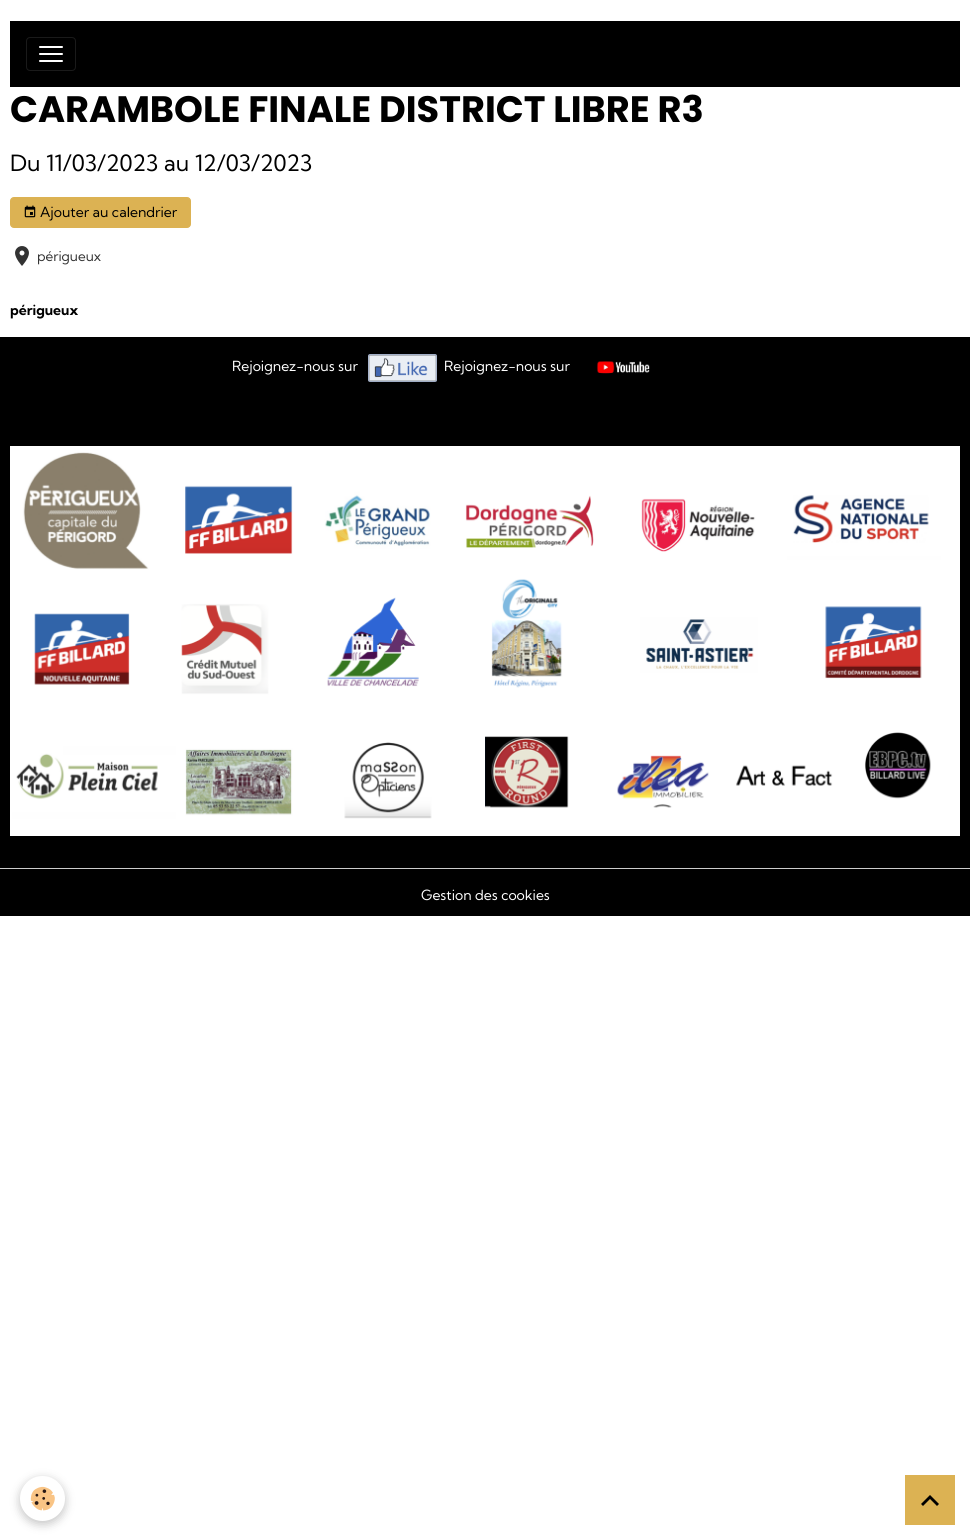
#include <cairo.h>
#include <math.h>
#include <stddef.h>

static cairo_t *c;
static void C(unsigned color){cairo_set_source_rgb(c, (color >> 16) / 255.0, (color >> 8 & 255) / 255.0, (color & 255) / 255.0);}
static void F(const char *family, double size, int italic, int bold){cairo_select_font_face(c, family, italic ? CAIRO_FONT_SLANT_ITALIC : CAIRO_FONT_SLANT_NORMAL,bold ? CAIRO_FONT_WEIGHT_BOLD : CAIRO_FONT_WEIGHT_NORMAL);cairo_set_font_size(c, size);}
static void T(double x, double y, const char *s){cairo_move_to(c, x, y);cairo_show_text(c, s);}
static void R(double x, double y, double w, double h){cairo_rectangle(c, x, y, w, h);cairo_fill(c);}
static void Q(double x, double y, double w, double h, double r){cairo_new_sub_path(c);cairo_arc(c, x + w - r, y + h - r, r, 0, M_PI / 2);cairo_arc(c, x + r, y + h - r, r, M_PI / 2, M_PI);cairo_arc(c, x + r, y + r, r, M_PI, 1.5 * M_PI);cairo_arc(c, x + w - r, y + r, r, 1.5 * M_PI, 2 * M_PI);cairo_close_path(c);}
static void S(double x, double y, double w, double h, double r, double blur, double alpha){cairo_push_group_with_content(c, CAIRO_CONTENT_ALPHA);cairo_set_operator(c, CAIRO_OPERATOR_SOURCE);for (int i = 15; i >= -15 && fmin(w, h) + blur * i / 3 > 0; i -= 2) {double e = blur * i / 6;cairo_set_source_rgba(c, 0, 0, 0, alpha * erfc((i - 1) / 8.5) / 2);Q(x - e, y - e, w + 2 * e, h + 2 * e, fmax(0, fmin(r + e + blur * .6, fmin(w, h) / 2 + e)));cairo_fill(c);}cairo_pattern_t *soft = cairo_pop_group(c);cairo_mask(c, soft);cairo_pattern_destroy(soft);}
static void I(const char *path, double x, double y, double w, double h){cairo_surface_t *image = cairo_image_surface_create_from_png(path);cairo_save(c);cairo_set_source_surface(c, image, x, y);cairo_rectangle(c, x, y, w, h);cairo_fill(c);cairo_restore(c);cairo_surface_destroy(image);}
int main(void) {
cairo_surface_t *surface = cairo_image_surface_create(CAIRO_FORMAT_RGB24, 970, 1540);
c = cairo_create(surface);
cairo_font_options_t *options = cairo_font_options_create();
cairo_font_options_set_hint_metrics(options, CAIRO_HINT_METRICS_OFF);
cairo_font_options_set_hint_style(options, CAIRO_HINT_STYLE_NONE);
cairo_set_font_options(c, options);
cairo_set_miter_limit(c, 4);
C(0xffffff);
cairo_paint(c);
C(0x000000);
R(10,21,950,66);
Q(26.5,37.5,49,33,3.5);
C(0x1a1a1a);
cairo_set_line_width(c,1);
cairo_stroke(c);
C(0xffffff);
Q(39,46,24,2,1);
cairo_fill(c);
Q(39,53,24,2,1);
cairo_fill(c);
Q(39,60,24,2,1);
cairo_fill(c);
F("Poppins",36.75,0,1);
C(0x000000);
T(10,122,"CARAMBOLE FINALE DISTRICT LIBRE R3");
F("Kumbh Sans",22.4,0,0);
T(10,171,"Du 11/03/2023 au 12/03/2023");
C(0xdcb253);
Q(10.5,197.5,180,30,3.5);
cairo_fill_preserve(c);
cairo_stroke(c);
I("1.png",24,205,12,13);
F("Kumbh Sans",14,0,0);
C(0x000000);
T(40,217,"Ajouter au calendrier");
I("2.png",15,246,14,20);
F("Kumbh Sans",13.5,0,0);
C(0x333333);
T(37,261,"périgueux");
F("Kumbh Sans",14,0,1);
C(0x000000);
T(10,315,"périgueux");
R(0,337,970,579);
F("Kumbh Sans",14,0,0);
C(0xffffff);
T(232,371,"Rejoignez-nous sur");
I("3.png",368,354,69,28);
T(444,371,"Rejoignez-nous sur");
I("4.png",596,361,54,13);
I("5.png",10,446,950,390);
C(0xcccccc);
R(0,868,970,1);
C(0xffffff);
T(421,900,"Gestion des cookies");
C(0x000000);
S(20,1479,45,45,22.5,5,.24);
C(0xffffff);
cairo_arc(c,42.5,1498.5,22.5,0,2 * M_PI);
cairo_fill(c);
I("6.png",30,1486,25,25);
C(0xdcb253);
R(905,1475,50,50);
C(0x000000);
cairo_new_path(c);
cairo_move_to(c,930,1495);
cairo_line_to(c,939,1504);
cairo_line_to(c,937,1506);
cairo_line_to(c,930,1499);
cairo_line_to(c,923,1506);
cairo_line_to(c,921,1504);
cairo_close_path(c);
cairo_fill(c);
cairo_surface_write_to_png(surface, "o.png");
cairo_font_options_destroy(options);
cairo_destroy(c);
cairo_surface_destroy(surface);
return 0;
}
